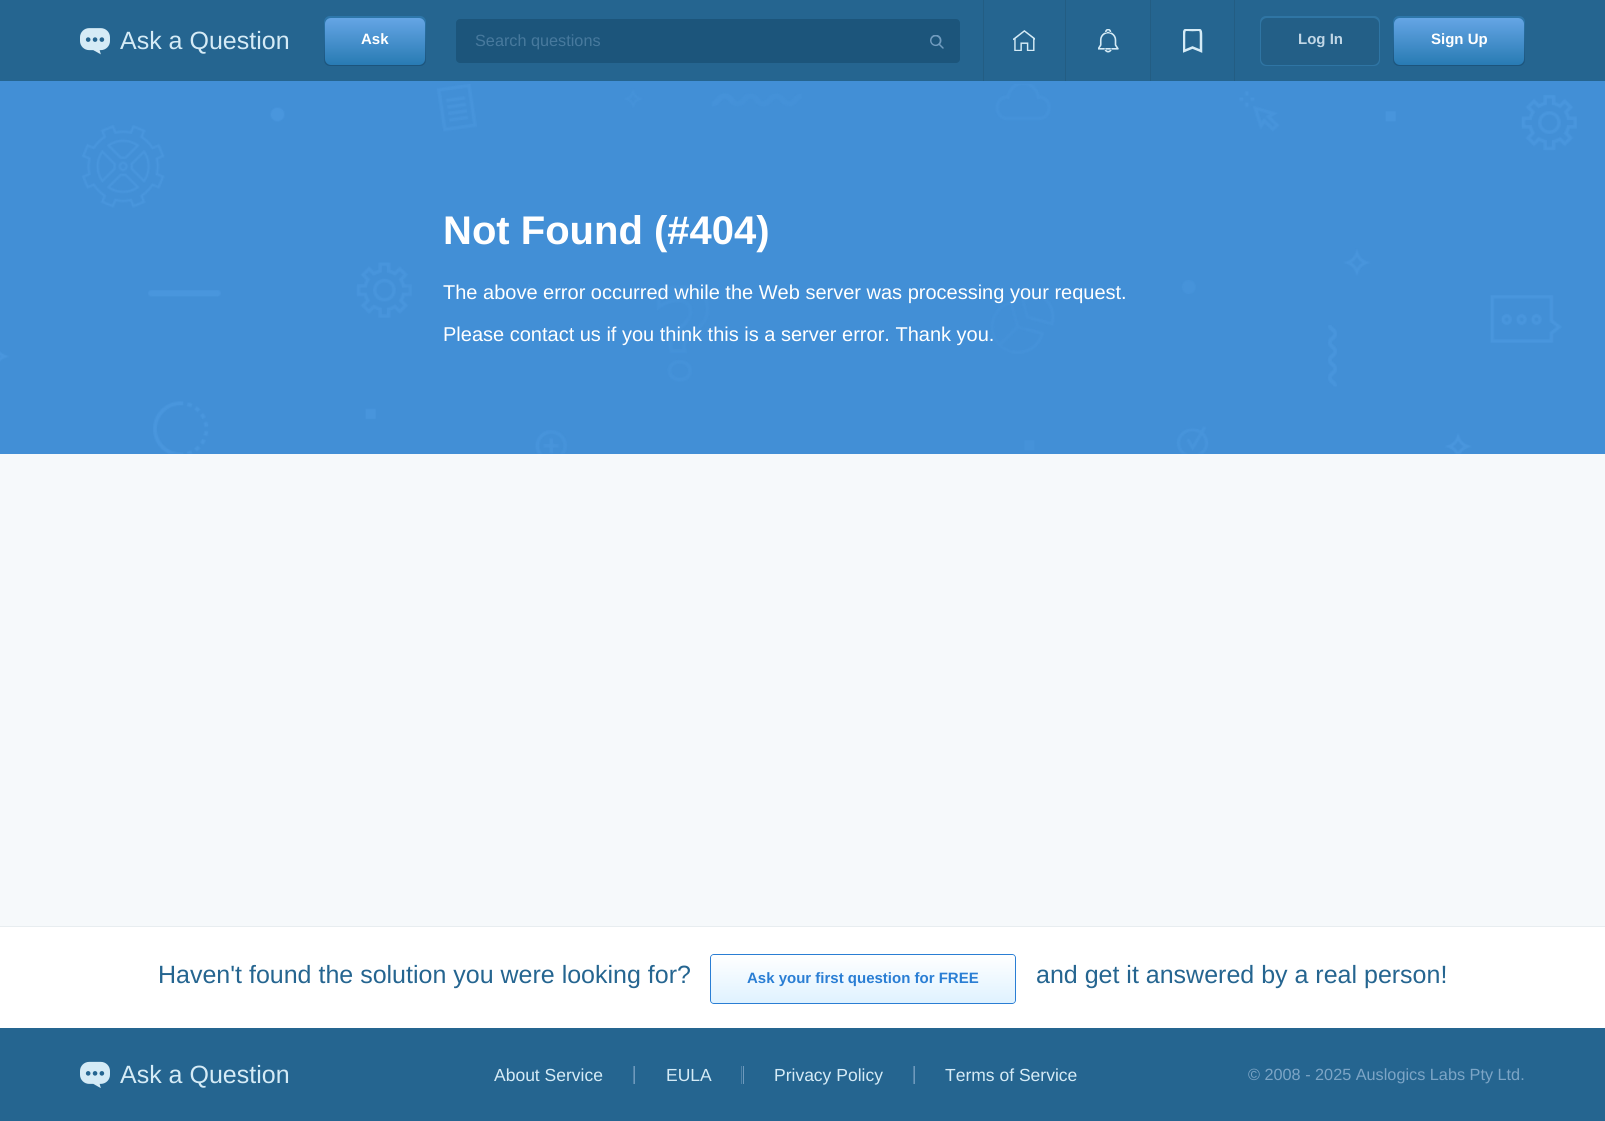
#include <cairo.h>
#include <math.h>
#include <stddef.h>

static cairo_t *c;
static void C(unsigned color){cairo_set_source_rgb(c, (color >> 16) / 255.0, (color >> 8 & 255) / 255.0, (color & 255) / 255.0);}
static void F(const char *family, double size, int italic, int bold){cairo_select_font_face(c, family, italic ? CAIRO_FONT_SLANT_ITALIC : CAIRO_FONT_SLANT_NORMAL,bold ? CAIRO_FONT_WEIGHT_BOLD : CAIRO_FONT_WEIGHT_NORMAL);cairo_set_font_size(c, size);}
static void T(double x, double y, const char *s){cairo_move_to(c, x, y);cairo_show_text(c, s);}
static void R(double x, double y, double w, double h){cairo_rectangle(c, x, y, w, h);cairo_fill(c);}
static void Q(double x, double y, double w, double h, double r){cairo_new_sub_path(c);cairo_arc(c, x + w - r, y + h - r, r, 0, M_PI / 2);cairo_arc(c, x + r, y + h - r, r, M_PI / 2, M_PI);cairo_arc(c, x + r, y + r, r, M_PI, 1.5 * M_PI);cairo_arc(c, x + w - r, y + r, r, 1.5 * M_PI, 2 * M_PI);cairo_close_path(c);}
static void I(const char *path, double x, double y, double w, double h){cairo_surface_t *image = cairo_image_surface_create_from_png(path);cairo_save(c);cairo_set_source_surface(c, image, x, y);cairo_rectangle(c, x, y, w, h);cairo_fill(c);cairo_restore(c);cairo_surface_destroy(image);}
int main(void) {
cairo_surface_t *surface = cairo_image_surface_create(CAIRO_FORMAT_RGB24, 1605, 1121);
c = cairo_create(surface);
cairo_font_options_t *options = cairo_font_options_create();
cairo_font_options_set_hint_metrics(options, CAIRO_HINT_METRICS_OFF);
cairo_font_options_set_hint_style(options, CAIRO_HINT_STYLE_NONE);
cairo_set_font_options(c, options);
cairo_set_miter_limit(c, 4);
cairo_pattern_t *gradient;
C(0xf6f9fb);
cairo_paint(c);
C(0x256590);
R(0,0,1605,81);
I("1.png",80,28,30,27);
F("Liberation Sans",25,0,0);
C(0xd5ebf6);
T(120,49,"Ask a Question");
gradient = cairo_pattern_create_linear(375,66,375,16);
cairo_pattern_add_color_stop_rgba(gradient,0,0.11,0.329,0.486,1);
cairo_pattern_add_color_stop_rgba(gradient,1,0.176,0.467,0.671,1);
cairo_set_source(c,gradient);
cairo_pattern_destroy(gradient);
Q(324,16,102,50,6);
cairo_fill(c);
gradient = cairo_pattern_create_linear(375,65,375,18);
cairo_pattern_add_color_stop_rgba(gradient,0,0.157,0.482,0.702,1);
cairo_pattern_add_color_stop_rgba(gradient,1,0.396,0.647,0.898,1);
cairo_set_source(c,gradient);
cairo_pattern_destroy(gradient);
Q(325,18,100,47,6);
cairo_fill(c);
F("Liberation Sans",15,0,1);
C(0xffffff);
T(361,44,"Ask");
C(0x1c557b);
Q(456,19,504,44,4);
cairo_fill(c);
F("Liberation Sans",16.25,0,0);
C(0x47799d);
T(475,46,"Search questions");
I("2.png",930,35,14,14);
C(0x428fd6);
R(0,81,1605,373);
cairo_save(c);
cairo_rectangle(c,983,0,82,81);
cairo_clip(c);
cairo_rectangle(c,983.5,-.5,82,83);
C(0x235d83);
cairo_set_line_width(c,1);
cairo_stroke(c);
cairo_restore(c);
I("3.png",1013,30,22,21);
cairo_save(c);
cairo_rectangle(c,1065,0,85,81);
cairo_clip(c);
cairo_rectangle(c,1065.5,-.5,85,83);
C(0x235d83);
cairo_set_line_width(c,1);
cairo_stroke(c);
cairo_restore(c);
I("4.png",1098,29,21,24);
cairo_save(c);
cairo_rectangle(c,1150,0,85,81);
cairo_clip(c);
cairo_rectangle(c,1150.5,-.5,84,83);
C(0x235d83);
cairo_set_line_width(c,1);
cairo_stroke(c);
cairo_restore(c);
cairo_save(c);
cairo_rectangle(c,1183,29,20,24);
cairo_clip(c);
cairo_new_path(c);
cairo_move_to(c,1201,51);
cairo_line_to(c,1192.5,47.5);
cairo_line_to(c,1184,51);
cairo_line_to(c,1184,35.5);
cairo_curve_to(c,1184,28,1185,30,1192.5,30);
cairo_curve_to(c,1200,30,1201,28,1201,35.5);
cairo_close_path(c);
C(0xd5ebf6);
cairo_set_line_width(c,2.5);
cairo_stroke(c);
cairo_restore(c);
C(0x2f75a4);
Q(1260,16,120,50,6);
cairo_fill(c);
C(0x235f87);
Q(1261,18,118,47,6);
cairo_fill(c);
F("Liberation Sans",15,0,1);
C(0xc1d7e6);
T(1298,44,"Log In");
gradient = cairo_pattern_create_linear(1459,66,1459,16);
cairo_pattern_add_color_stop_rgba(gradient,0,0.11,0.329,0.486,1);
cairo_pattern_add_color_stop_rgba(gradient,1,0.176,0.467,0.671,1);
cairo_set_source(c,gradient);
cairo_pattern_destroy(gradient);
Q(1393,16,132,50,6);
cairo_fill(c);
gradient = cairo_pattern_create_linear(1459,65,1459,18);
cairo_pattern_add_color_stop_rgba(gradient,0,0.157,0.482,0.702,1);
cairo_pattern_add_color_stop_rgba(gradient,1,0.396,0.647,0.898,1);
cairo_set_source(c,gradient);
cairo_pattern_destroy(gradient);
Q(1394,18,130,47,6);
cairo_fill(c);
C(0xffffff);
T(1431,44,"Sign Up");
I("5.png",0,84,1577,370);
F("Liberation Sans",40,0,1);
T(443,244,"Not Found (#404)");
F("Liberation Sans",20,0,0);
T(443,299,"The above error occurred while the Web server was processing your request.");
T(443,341,"Please contact us if you think this is a server error. Thank you.");
R(0,927,1605,101);
C(0xe8edf0);
R(0,926,1605,1);
F("Liberation Sans",25,0,0);
C(0x256590);
T(158,983,"Haven't found the solution you were looking for?");
C(0x2a7ed4);
Q(710,954,306,50,4);
cairo_fill(c);
gradient = cairo_pattern_create_linear(863,1003,863,955);
cairo_pattern_add_color_stop_rgba(gradient,0,0.875,0.949,1,1);
cairo_pattern_add_color_stop_rgba(gradient,1,1,1,1,1);
cairo_set_source(c,gradient);
cairo_pattern_destroy(gradient);
Q(711,955,304,48,2.5);
cairo_fill(c);
F("Liberation Sans",15,0,1);
C(0x2a7ed4);
T(747,983,"Ask your first question for FREE");
F("Liberation Sans",25,0,0);
C(0x256590);
T(1036,983,"and get it answered by a real person!");
R(0,1028,1605,93);
I("6.png",80,1061,30,27);
C(0xd5ebf6);
T(120,1083,"Ask a Question");
F("Liberation Sans",17.5,0,0);
T(494,1081,"About Service");
C(0x6e9abd);
R(634,1066,1,18);
C(0x5183a9);
R(633,1066,1,18);
C(0xd5ebf6);
T(666,1081,"EULA");
C(0x6e9abd);
R(743,1066,1,18);
C(0x5183a9);
R(741,1066,1,18);
C(0xd5ebf6);
T(774,1081,"Privacy Policy");
C(0x6e9abd);
R(914,1066,1,18);
C(0x5183a9);
R(913,1066,1,18);
C(0xd5ebf6);
T(945,1081,"Terms of Service");
F("Liberation Sans",16.25,0,0);
C(0x7ca5c6);
T(1248,1080,"© 2008 - 2025 Auslogics Labs Pty Ltd.");
cairo_surface_write_to_png(surface, "o.png");
cairo_font_options_destroy(options);
cairo_destroy(c);
cairo_surface_destroy(surface);
return 0;
}
